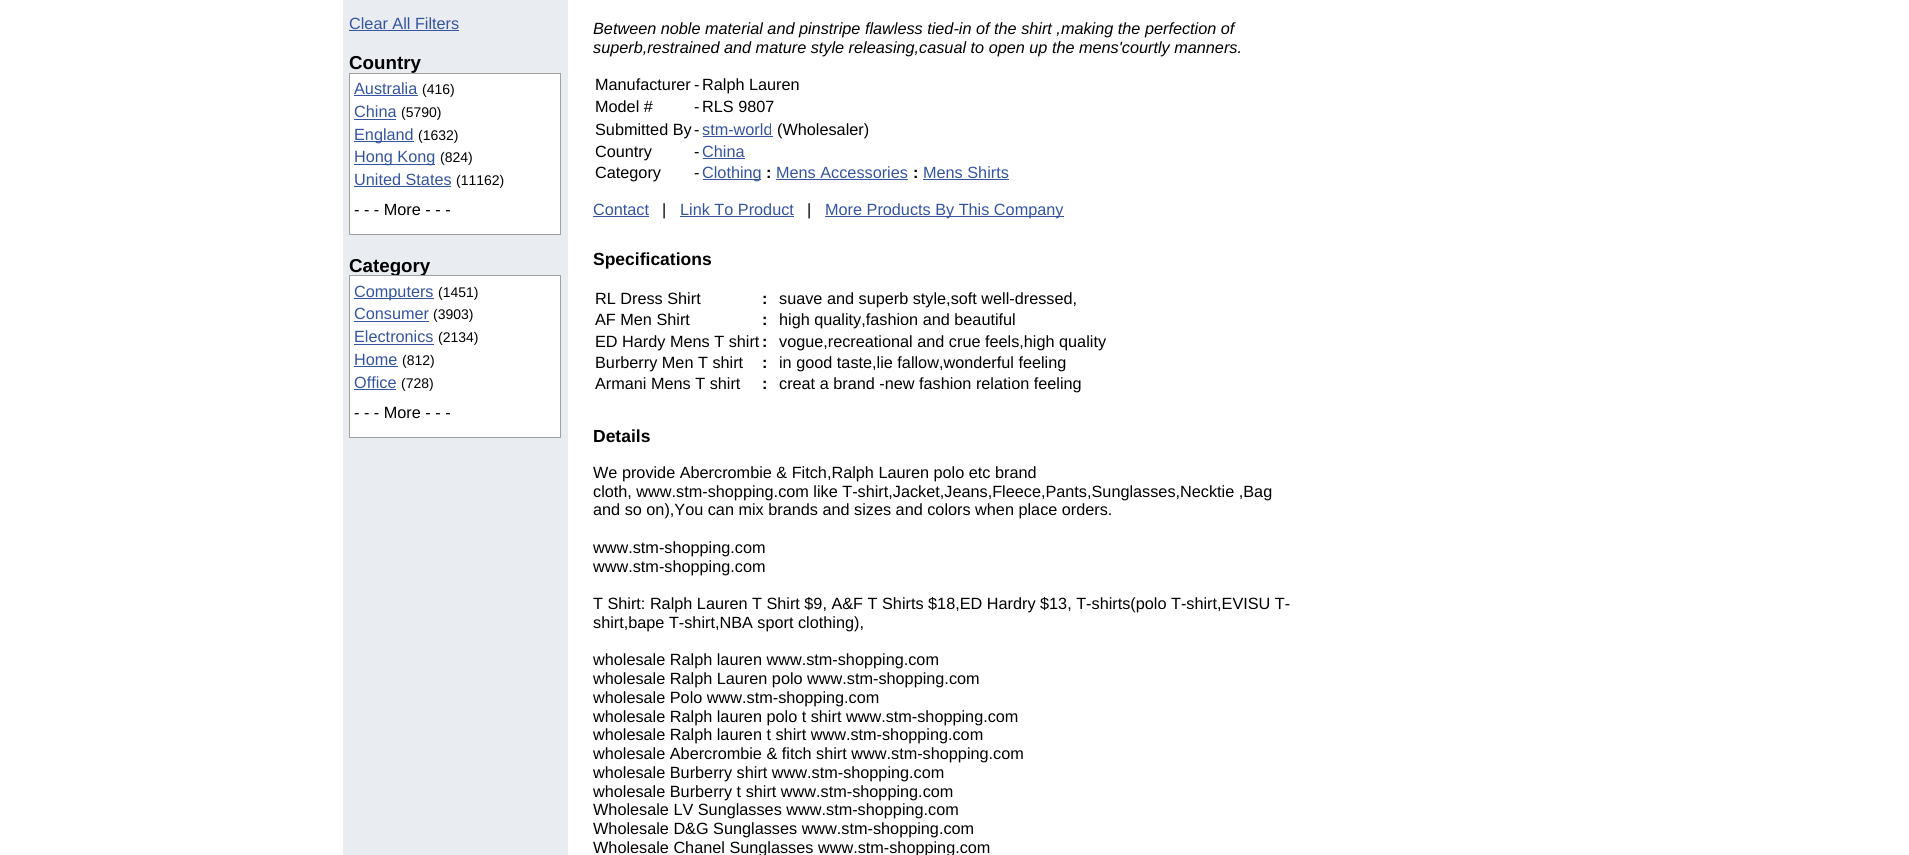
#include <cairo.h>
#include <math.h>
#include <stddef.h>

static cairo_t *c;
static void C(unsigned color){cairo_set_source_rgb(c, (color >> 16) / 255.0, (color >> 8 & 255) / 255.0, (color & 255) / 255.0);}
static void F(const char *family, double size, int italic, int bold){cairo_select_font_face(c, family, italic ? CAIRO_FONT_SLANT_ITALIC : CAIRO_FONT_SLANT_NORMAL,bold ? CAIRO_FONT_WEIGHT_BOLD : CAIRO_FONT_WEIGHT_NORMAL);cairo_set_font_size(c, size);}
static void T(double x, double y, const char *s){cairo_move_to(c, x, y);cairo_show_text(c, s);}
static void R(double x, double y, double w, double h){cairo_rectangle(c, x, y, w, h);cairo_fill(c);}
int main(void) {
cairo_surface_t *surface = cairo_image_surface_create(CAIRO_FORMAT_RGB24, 1909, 855);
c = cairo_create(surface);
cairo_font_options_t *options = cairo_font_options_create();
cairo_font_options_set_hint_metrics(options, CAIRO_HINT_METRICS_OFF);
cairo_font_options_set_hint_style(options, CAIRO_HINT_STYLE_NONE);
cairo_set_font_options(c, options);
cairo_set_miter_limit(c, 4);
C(0xffffff);
cairo_paint(c);
C(0xe9edf2);
R(343,0,225,855);
F("Liberation Sans",16.25,0,0);
C(0x3454a0);
T(349,29,"Clear All Filters");
R(349,30,110,1);
F("Liberation Sans",18.75,0,1);
C(0x000000);
T(349,69,"Country");
C(0xffffff);
cairo_rectangle(c,349.5,73.5,211,161);
cairo_fill_preserve(c);
C(0xa0a0a0);
cairo_set_line_width(c,1);
cairo_stroke(c);
F("Liberation Sans",16.25,0,0);
C(0x3454a0);
T(354,94,"Australia");
R(354,95,64,1);
F("Liberation Sans",14,0,0);
C(0x000000);
T(422,94,"(416)");
F("Liberation Sans",16.25,0,0);
C(0x3454a0);
T(354,117,"China");
R(354,119,42,1);
F("Liberation Sans",14,0,0);
C(0x000000);
T(401,117,"(5790)");
C(0x3454a0);
R(354,141,60,1);
F("Liberation Sans",16.25,0,0);
T(354,140,"England");
F("Liberation Sans",14,0,0);
C(0x000000);
T(418,140,"(1632)");
C(0x3454a0);
R(354,164,81,1);
F("Liberation Sans",16.25,0,0);
T(354,162,"Hong Kong");
F("Liberation Sans",14,0,0);
C(0x000000);
T(440,162,"(824)");
F("Liberation Sans",16.25,0,0);
C(0x3454a0);
T(354,185,"United States");
R(354,186,97,1);
F("Liberation Sans",14,0,0);
C(0x000000);
T(456,185,"(11162)");
F("Liberation Sans",16.25,0,0);
T(354,215,"- - - More - - -");
F("Liberation Sans",18.75,0,1);
T(349,272,"Category");
C(0xffffff);
cairo_rectangle(c,349.5,275.5,211,162);
cairo_fill_preserve(c);
C(0xa0a0a0);
cairo_stroke(c);
C(0x3454a0);
R(354,298,80,1);
F("Liberation Sans",16.25,0,0);
T(354,297,"Computers");
F("Liberation Sans",14,0,0);
C(0x000000);
T(438,297,"(1451)");
F("Liberation Sans",16.25,0,0);
C(0x3454a0);
T(354,319,"Consumer");
R(354,321,75,1);
F("Liberation Sans",14,0,0);
C(0x000000);
T(433,319,"(3903)");
F("Liberation Sans",16.25,0,0);
C(0x3454a0);
T(354,342,"Electronics");
R(354,344,80,1);
F("Liberation Sans",14,0,0);
C(0x000000);
T(438,342,"(2134)");
F("Liberation Sans",16.25,0,0);
C(0x3454a0);
T(354,365,"Home");
R(354,366,44,1);
F("Liberation Sans",14,0,0);
C(0x000000);
T(402,365,"(812)");
F("Liberation Sans",16.25,0,0);
C(0x3454a0);
T(354,388,"Office");
R(354,389,42,1);
F("Liberation Sans",14,0,0);
C(0x000000);
T(401,388,"(728)");
F("Liberation Sans",16.25,0,0);
T(354,418,"- - - More - - -");
F("Liberation Sans",16.25,1,0);
T(593,34,"Between noble material and pinstripe flawless tied-in of the shirt ,making the perfection of");
T(593,53,"superb,restrained and mature style releasing,casual to open up the mens'courtly manners.");
F("Liberation Sans",16.25,0,0);
T(595,90,"Manufacturer");
T(694,90,"-");
T(702,90,"Ralph Lauren");
T(595,112,"Model #");
T(694,112,"-");
T(702,112,"RLS 9807");
T(595,135,"Submitted By");
T(694,135,"-");
C(0x3454a0);
T(702,135,"stm-world");
R(703,136,70,1);
C(0x000000);
T(777,135,"(Wholesaler)");
T(595,157,"Country");
T(694,157,"-");
C(0x3454a0);
T(702,157,"China");
R(703,158,42,1);
C(0x000000);
T(595,178,"Category");
T(694,178,"-");
C(0x3454a0);
R(703,179,58,1);
T(702,178,"Clothing");
F("Liberation Sans",16.25,0,1);
C(0x000000);
T(766,178,":");
F("Liberation Sans",16.25,0,0);
C(0x3454a0);
T(776,178,"Mens Accessories");
R(776,179,132,1);
F("Liberation Sans",16.25,0,1);
C(0x000000);
T(913,178,":");
F("Liberation Sans",16.25,0,0);
C(0x3454a0);
T(923,178,"Mens Shirts");
R(923,179,86,1);
T(593,215,"Contact");
R(593,216,56,1);
C(0x000000);
T(662,215,"|");
C(0x3454a0);
T(680,215,"Link To Product");
R(680,216,114,1);
C(0x000000);
T(807,215,"|");
C(0x3454a0);
R(825,216,239,1);
T(825,215,"More Products By This Company");
F("Liberation Sans",17.5,0,1);
C(0x000000);
T(593,265,"Specifications");
F("Liberation Sans",16.25,0,0);
T(595,304,"RL Dress Shirt");
F("Liberation Sans",16.25,0,1);
T(762,304,":");
F("Liberation Sans",16.25,0,0);
T(779,304,"suave and superb style,soft well-dressed,");
T(595,325,"AF Men Shirt");
F("Liberation Sans",16.25,0,1);
T(762,325,":");
F("Liberation Sans",16.25,0,0);
T(779,325,"high quality,fashion and beautiful");
T(595,347,"ED Hardy Mens T shirt");
F("Liberation Sans",16.25,0,1);
T(762,347,":");
F("Liberation Sans",16.25,0,0);
T(779,347,"vogue,recreational and crue feels,high quality");
T(595,368,"Burberry Men T shirt");
F("Liberation Sans",16.25,0,1);
T(762,368,":");
F("Liberation Sans",16.25,0,0);
T(779,368,"in good taste,lie fallow,wonderful feeling");
T(595,389,"Armani Mens T shirt");
F("Liberation Sans",16.25,0,1);
T(762,389,":");
F("Liberation Sans",16.25,0,0);
T(779,389,"creat a brand -new fashion relation feeling");
F("Liberation Sans",17.5,0,1);
T(593,442,"Details");
F("Liberation Sans",16.25,0,0);
T(593,478,"We provide Abercrombie & Fitch,Ralph Lauren polo etc brand");
T(593,497,"cloth, www.stm-shopping.com like T-shirt,Jacket,Jeans,Fleece,Pants,Sunglasses,Necktie ,Bag");
T(593,515,"and so on),You can mix brands and sizes and colors when place orders.");
T(593,553,"www.stm-shopping.com");
T(593,572,"www.stm-shopping.com");
T(593,609,"T Shirt: Ralph Lauren T Shirt $9, A&F T Shirts $18,ED Hardry $13, T-shirts(polo T-shirt,EVISU T-");
T(593,628,"shirt,bape T-shirt,NBA sport clothing),");
T(593,665,"wholesale Ralph lauren www.stm-shopping.com");
T(593,684,"wholesale Ralph Lauren polo www.stm-shopping.com");
T(593,703,"wholesale Polo www.stm-shopping.com");
T(593,722,"wholesale Ralph lauren polo t shirt www.stm-shopping.com");
T(593,740,"wholesale Ralph lauren t shirt www.stm-shopping.com");
T(593,759,"wholesale Abercrombie & fitch shirt www.stm-shopping.com");
T(593,778,"wholesale Burberry shirt www.stm-shopping.com");
T(593,797,"wholesale Burberry t shirt www.stm-shopping.com");
T(593,815,"Wholesale LV Sunglasses www.stm-shopping.com");
T(593,834,"Wholesale D&G Sunglasses www.stm-shopping.com");
T(593,853,"Wholesale Chanel Sunglasses www.stm-shopping.com");
cairo_surface_write_to_png(surface, "o.png");
cairo_font_options_destroy(options);
cairo_destroy(c);
cairo_surface_destroy(surface);
return 0;
}
